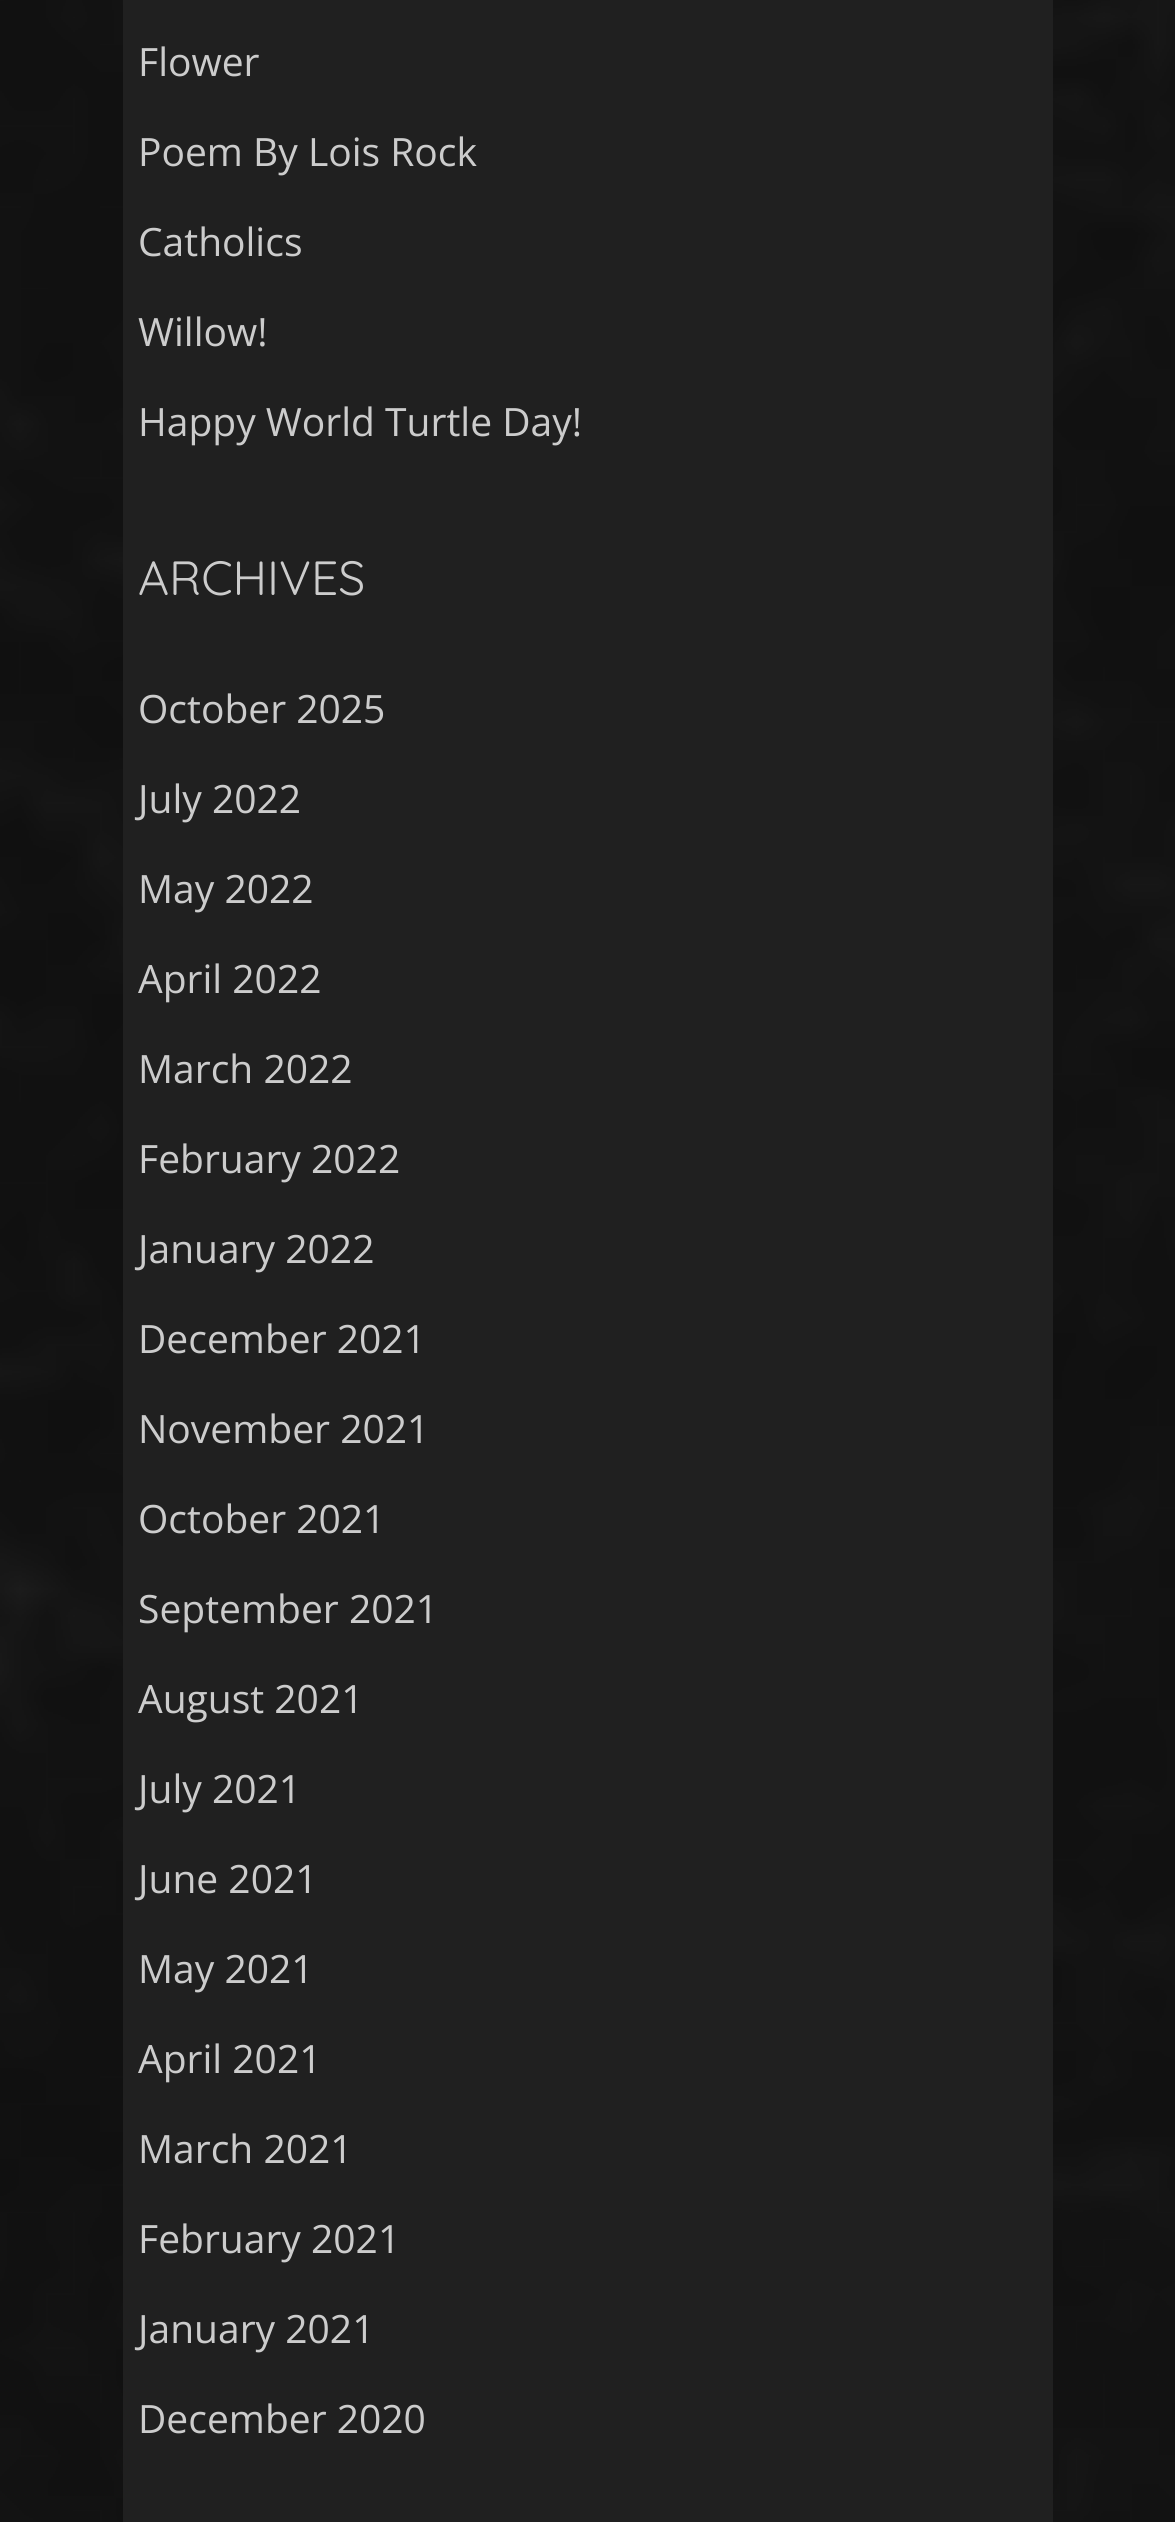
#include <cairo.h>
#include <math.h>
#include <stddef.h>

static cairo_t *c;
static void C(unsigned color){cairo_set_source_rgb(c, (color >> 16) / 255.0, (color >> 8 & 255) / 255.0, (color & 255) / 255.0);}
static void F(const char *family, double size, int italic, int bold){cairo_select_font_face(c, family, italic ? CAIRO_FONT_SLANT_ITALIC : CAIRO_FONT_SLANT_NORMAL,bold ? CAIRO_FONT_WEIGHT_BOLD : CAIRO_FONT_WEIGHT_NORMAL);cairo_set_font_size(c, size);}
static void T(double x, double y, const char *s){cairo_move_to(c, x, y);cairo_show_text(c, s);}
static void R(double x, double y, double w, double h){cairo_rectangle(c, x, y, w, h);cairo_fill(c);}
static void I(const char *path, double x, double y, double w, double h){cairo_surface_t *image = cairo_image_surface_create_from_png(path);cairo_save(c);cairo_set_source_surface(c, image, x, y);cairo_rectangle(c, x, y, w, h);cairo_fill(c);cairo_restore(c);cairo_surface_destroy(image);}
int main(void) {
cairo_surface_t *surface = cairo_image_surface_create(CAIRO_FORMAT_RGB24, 1175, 2522);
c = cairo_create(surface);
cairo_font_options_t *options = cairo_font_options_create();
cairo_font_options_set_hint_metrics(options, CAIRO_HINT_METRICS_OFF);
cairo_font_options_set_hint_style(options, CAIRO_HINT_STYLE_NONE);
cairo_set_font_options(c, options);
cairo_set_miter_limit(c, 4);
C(0xffffff);
cairo_paint(c);
I("1.png",0,0,1175,2522);
C(0x202020);
R(123,0,930,2522);
F("Open Sans",39,0,0);
C(0xcccccc);
T(138,76,"Flower");
T(138,166,"Poem By Lois Rock");
T(138,256,"Catholics");
T(138,346,"Willow!");
T(138,436,"Happy World Turtle Day!");
F("Quicksand",48,0,0);
T(138,595,"ARCHIVES");
F("Open Sans",39,0,0);
T(138,723,"October 2025");
T(138,813,"July 2022");
T(138,903,"May 2022");
T(138,993,"April 2022");
T(138,1083,"March 2022");
T(138,1173,"February 2022");
T(138,1263,"January 2022");
T(138,1353,"December 2021");
T(138,1443,"November 2021");
T(138,1533,"October 2021");
T(138,1623,"September 2021");
T(138,1713,"August 2021");
T(138,1803,"July 2021");
T(138,1893,"June 2021");
T(138,1983,"May 2021");
T(138,2073,"April 2021");
T(138,2163,"March 2021");
T(138,2253,"February 2021");
T(138,2343,"January 2021");
T(138,2433,"December 2020");
cairo_surface_write_to_png(surface, "o.png");
cairo_font_options_destroy(options);
cairo_destroy(c);
cairo_surface_destroy(surface);
return 0;
}
